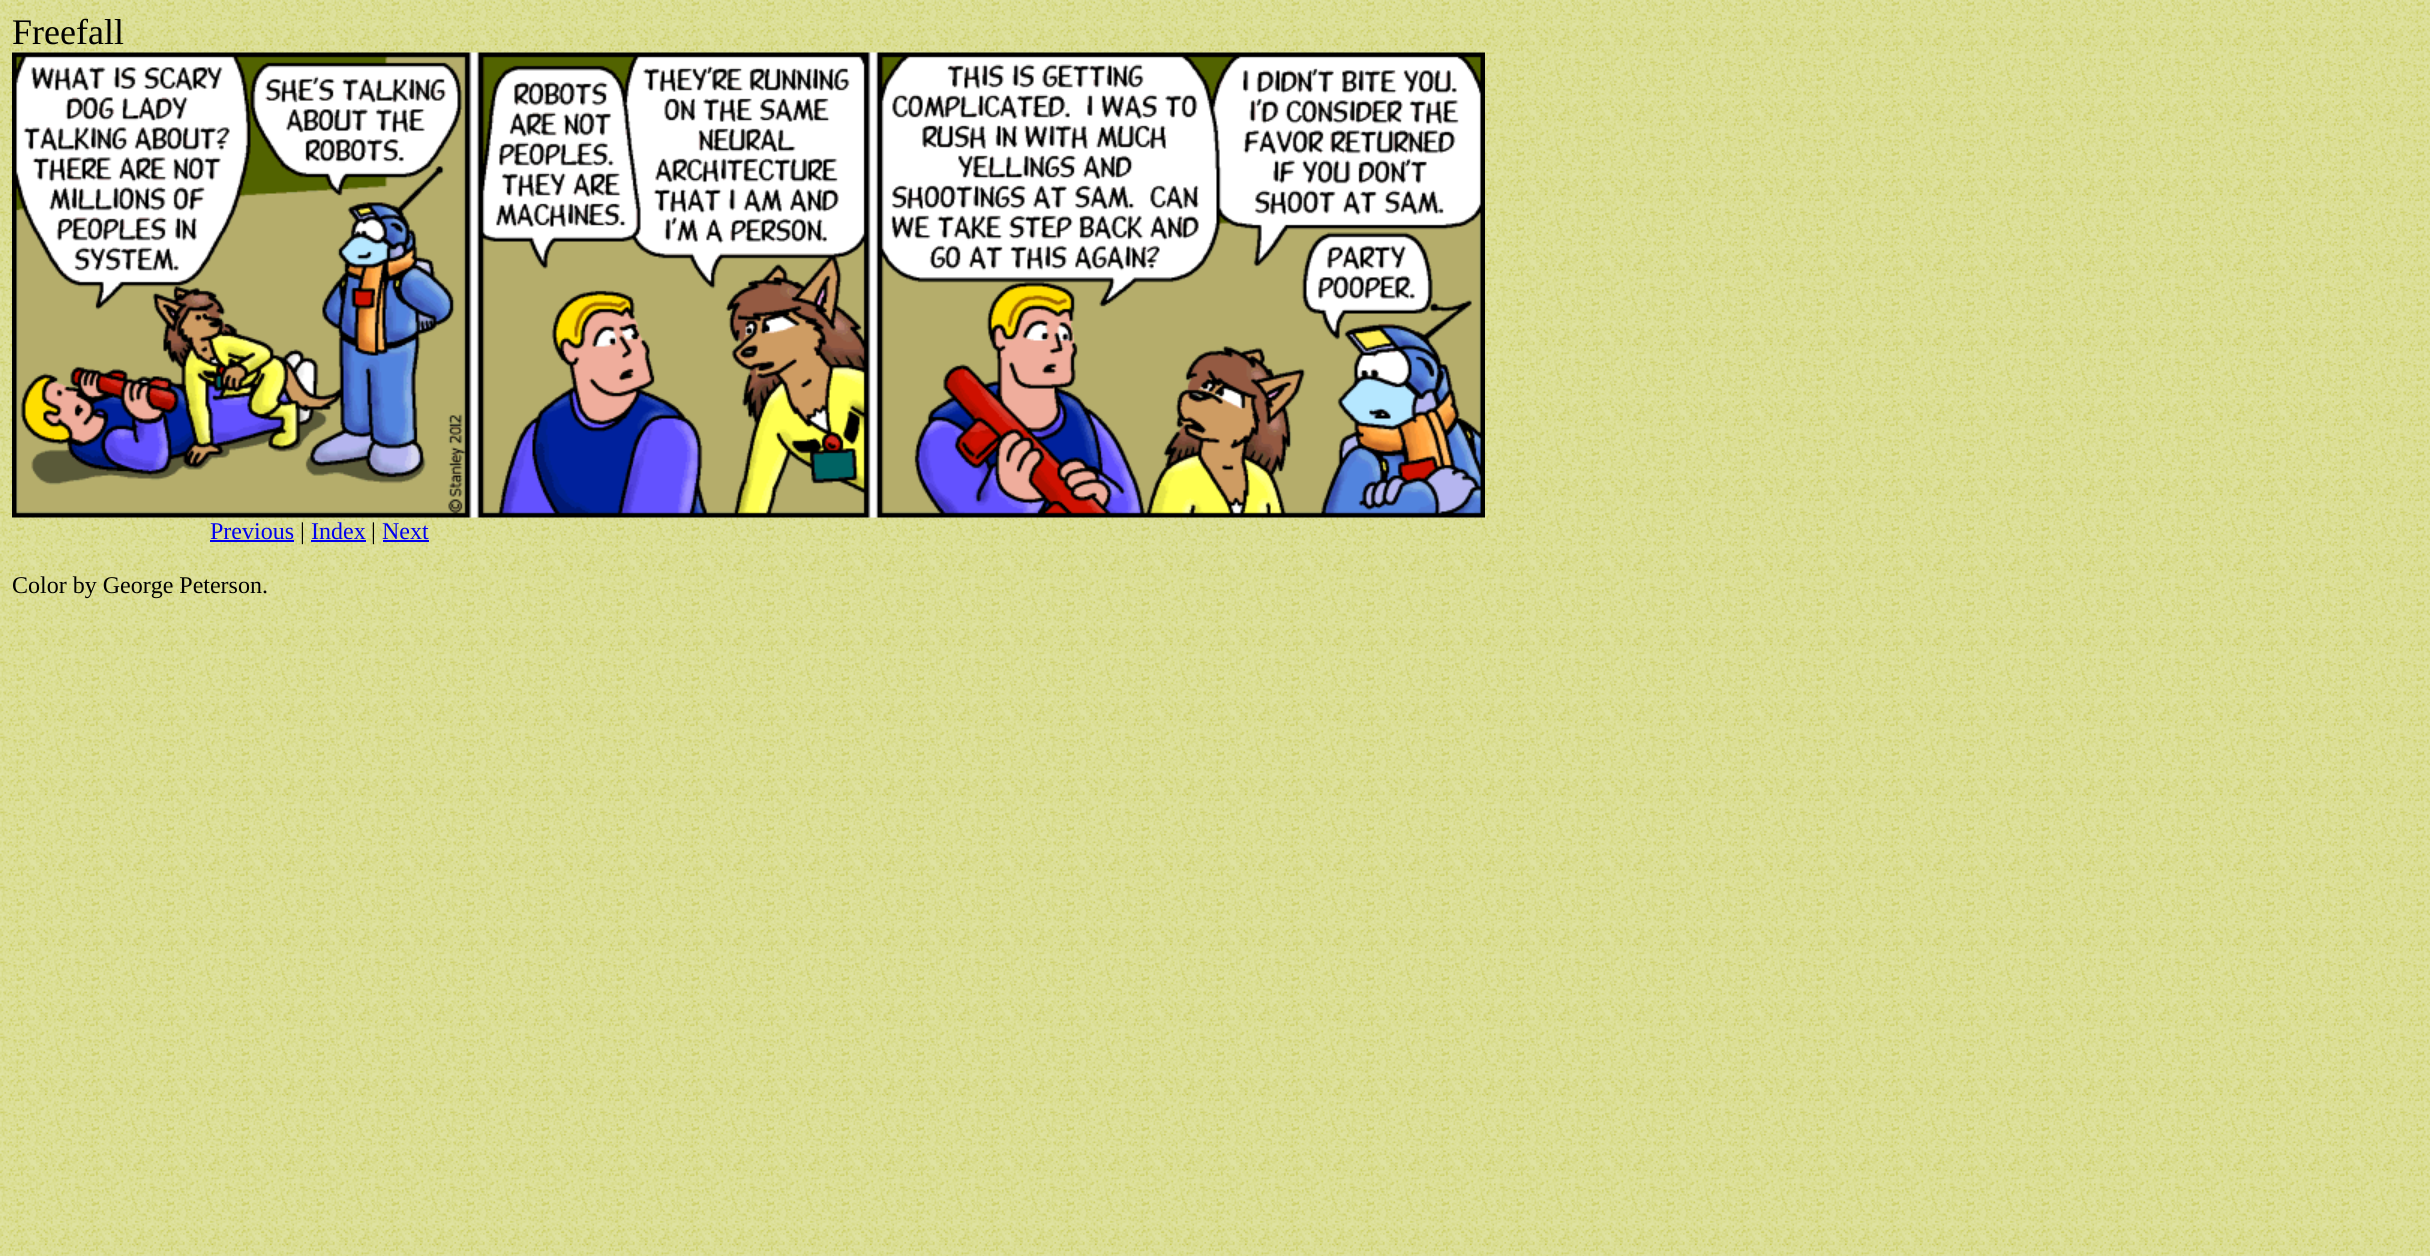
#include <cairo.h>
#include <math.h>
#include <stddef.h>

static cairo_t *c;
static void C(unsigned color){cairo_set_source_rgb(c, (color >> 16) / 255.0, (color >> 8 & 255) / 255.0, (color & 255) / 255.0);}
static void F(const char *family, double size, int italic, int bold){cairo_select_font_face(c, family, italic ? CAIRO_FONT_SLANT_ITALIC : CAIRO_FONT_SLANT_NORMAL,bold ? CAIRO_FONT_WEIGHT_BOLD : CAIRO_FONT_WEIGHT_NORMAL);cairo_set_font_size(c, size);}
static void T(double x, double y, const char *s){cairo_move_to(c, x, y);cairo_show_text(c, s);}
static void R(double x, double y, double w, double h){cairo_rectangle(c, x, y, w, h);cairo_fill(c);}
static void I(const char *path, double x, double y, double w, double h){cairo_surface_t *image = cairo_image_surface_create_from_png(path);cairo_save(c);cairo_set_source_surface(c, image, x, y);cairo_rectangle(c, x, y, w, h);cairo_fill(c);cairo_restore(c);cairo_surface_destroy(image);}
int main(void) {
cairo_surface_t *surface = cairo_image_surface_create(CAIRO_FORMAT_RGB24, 2430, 1256);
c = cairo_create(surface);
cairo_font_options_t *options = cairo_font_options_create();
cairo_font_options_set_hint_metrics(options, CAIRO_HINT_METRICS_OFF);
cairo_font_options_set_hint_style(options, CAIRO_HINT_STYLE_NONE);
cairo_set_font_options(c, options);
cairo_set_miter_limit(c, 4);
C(0xffffff);
cairo_paint(c);
I("1.png",0,0,2430,1256);
F("Liberation Serif",36,0,0);
C(0x000000);
T(12,44,"Freefall");
I("2.png",12,52,1473,466);
F("Liberation Serif",24,0,0);
C(0x0000ee);
T(210,539,"Previous");
R(210,540,84,2);
C(0x000000);
T(300,539,"|");
C(0x0000ee);
T(311,539,"Index");
R(311,540,55,2);
C(0x000000);
T(371,539,"|");
C(0x0000ee);
T(382,539,"Next");
R(383,540,46,2);
C(0x000000);
T(12,593,"Color by George Peterson.");
cairo_surface_write_to_png(surface, "o.png");
cairo_font_options_destroy(options);
cairo_destroy(c);
cairo_surface_destroy(surface);
return 0;
}
